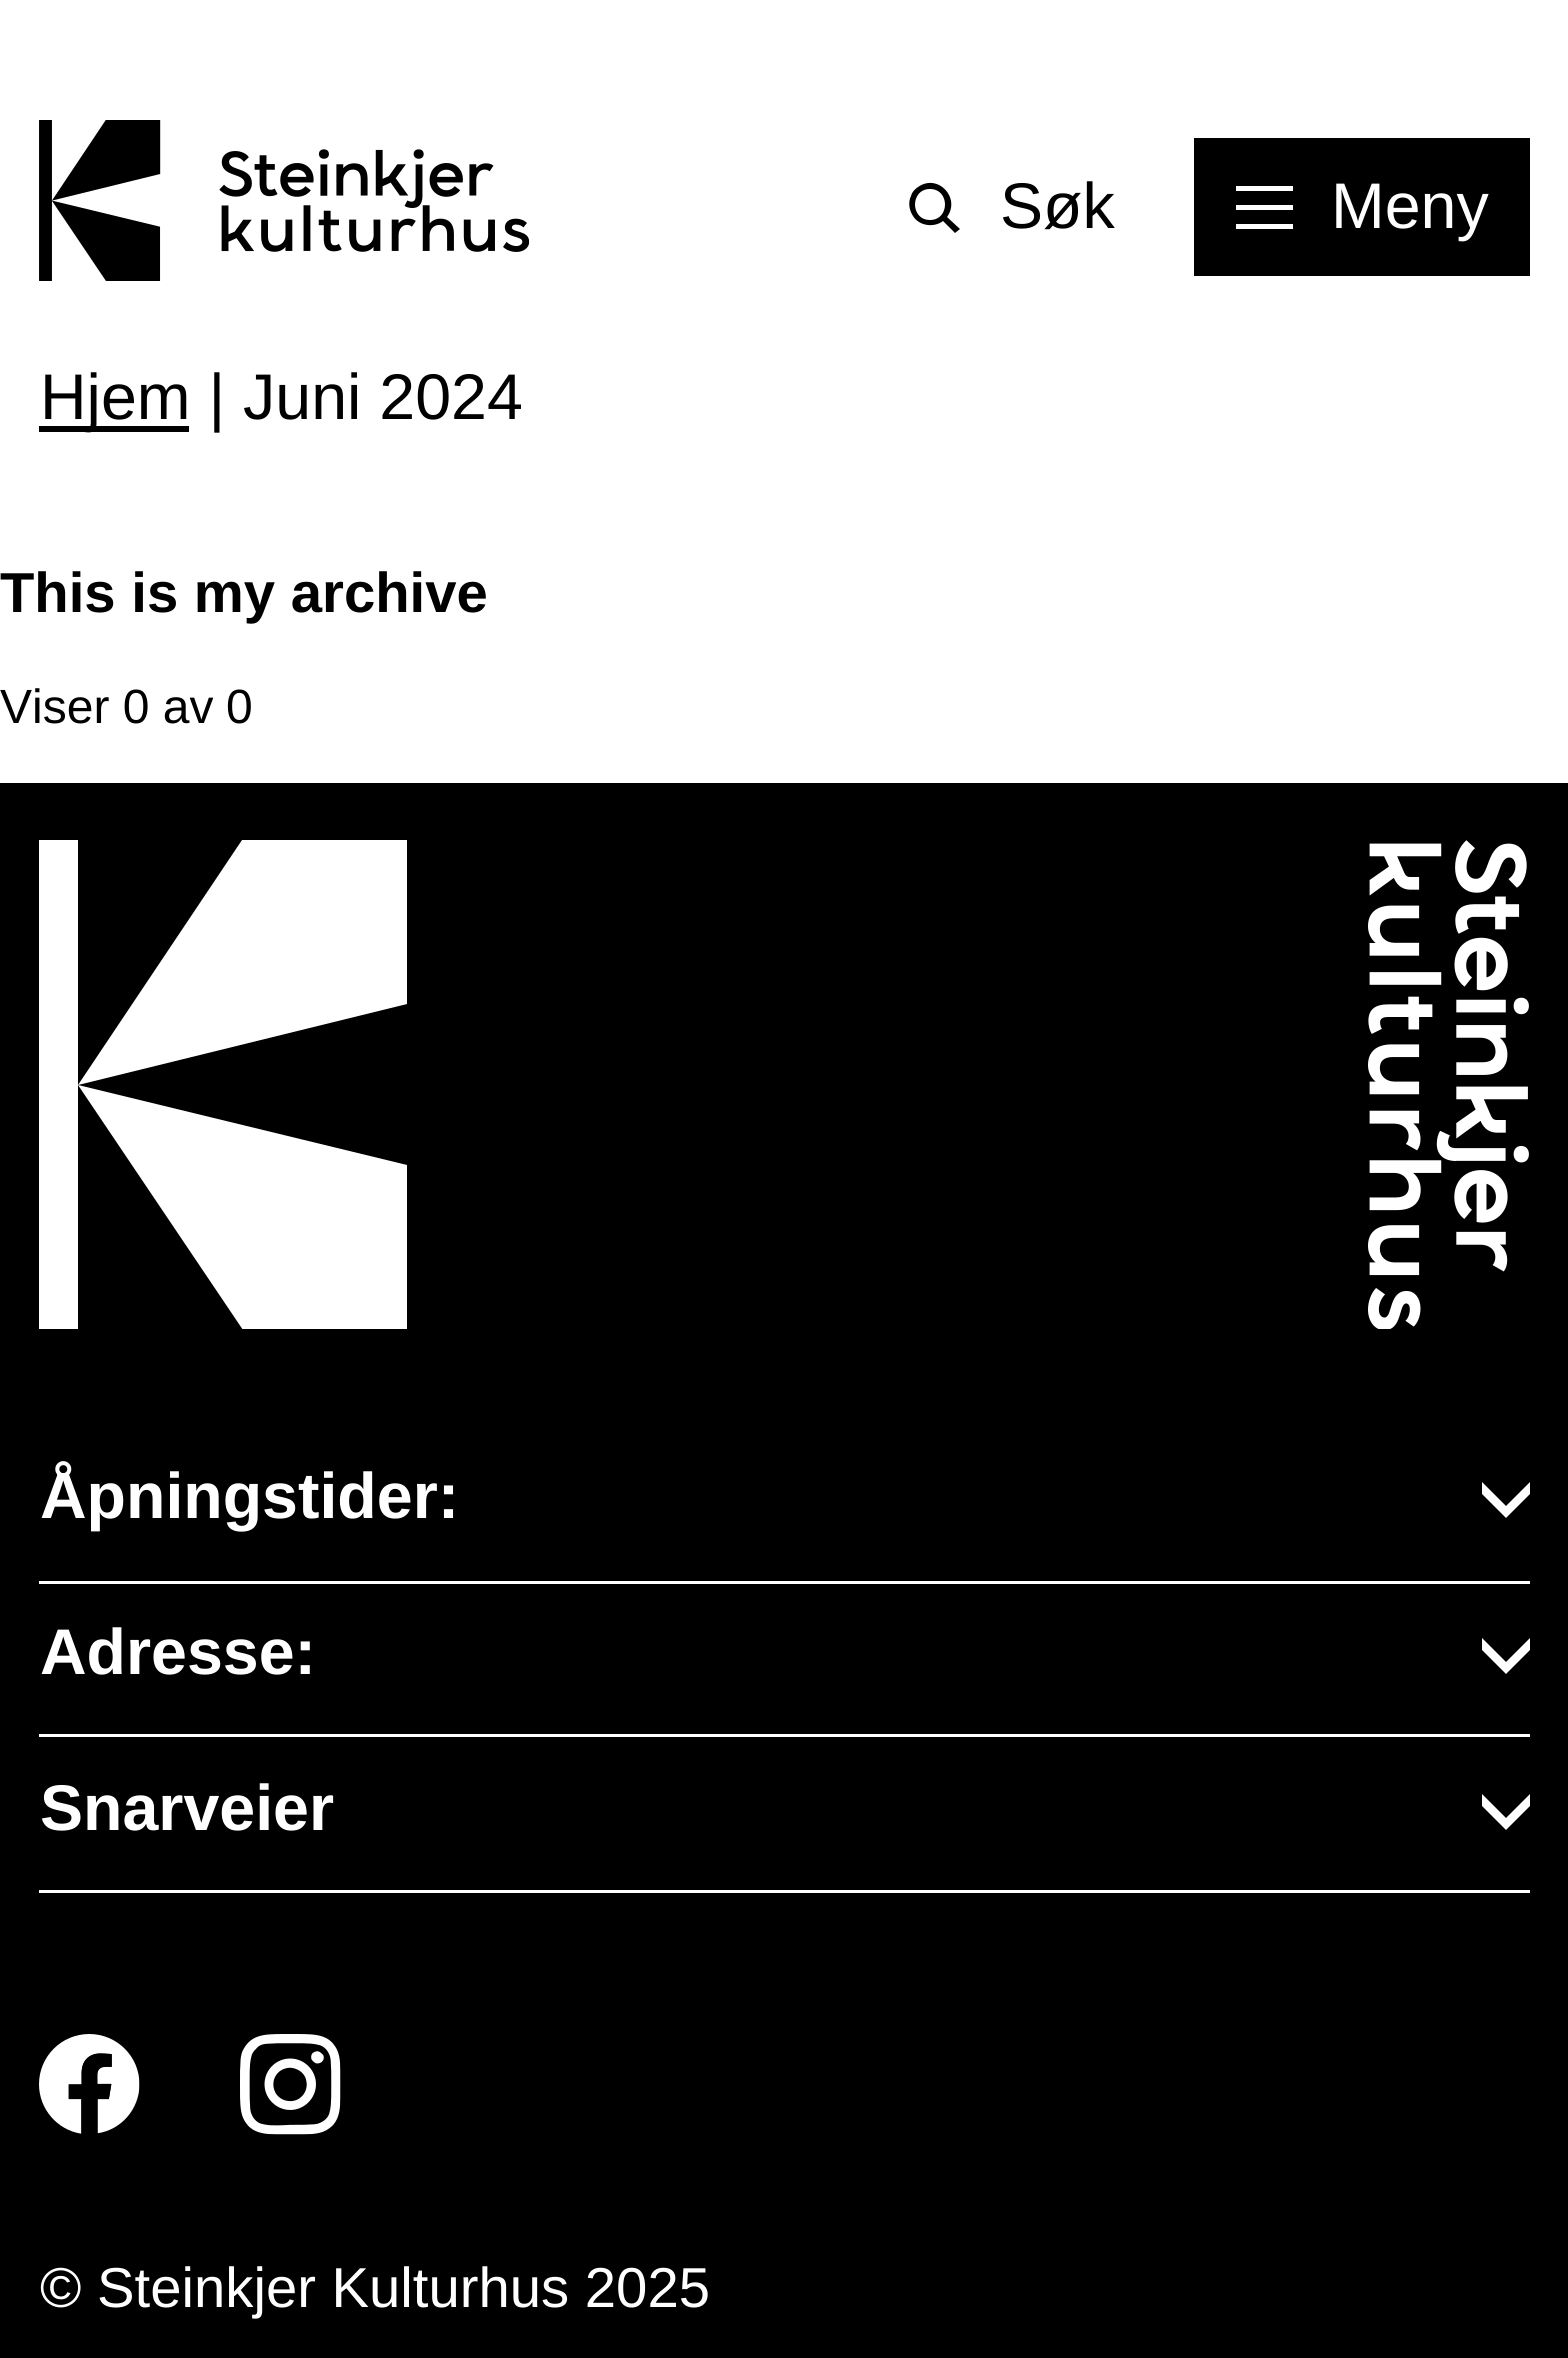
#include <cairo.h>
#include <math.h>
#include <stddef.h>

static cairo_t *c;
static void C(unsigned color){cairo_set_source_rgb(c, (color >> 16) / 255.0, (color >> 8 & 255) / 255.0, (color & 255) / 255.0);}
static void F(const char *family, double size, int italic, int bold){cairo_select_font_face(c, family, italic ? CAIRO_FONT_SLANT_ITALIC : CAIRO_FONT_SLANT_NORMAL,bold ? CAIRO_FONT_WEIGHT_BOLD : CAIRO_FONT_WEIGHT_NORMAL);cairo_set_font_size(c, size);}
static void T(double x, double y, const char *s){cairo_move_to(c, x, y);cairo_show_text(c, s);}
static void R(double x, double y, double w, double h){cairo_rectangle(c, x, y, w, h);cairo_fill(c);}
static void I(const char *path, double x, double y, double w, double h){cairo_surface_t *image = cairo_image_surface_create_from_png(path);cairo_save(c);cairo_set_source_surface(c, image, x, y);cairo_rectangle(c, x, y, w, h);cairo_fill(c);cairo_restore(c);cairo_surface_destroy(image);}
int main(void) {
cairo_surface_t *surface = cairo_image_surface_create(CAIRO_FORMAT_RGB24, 1568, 2358);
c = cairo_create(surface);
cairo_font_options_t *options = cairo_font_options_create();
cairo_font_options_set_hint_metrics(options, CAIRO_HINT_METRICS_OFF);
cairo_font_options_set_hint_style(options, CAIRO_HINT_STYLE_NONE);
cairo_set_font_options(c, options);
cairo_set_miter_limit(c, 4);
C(0xffffff);
cairo_paint(c);
I("1.png",39,120,491,161);
C(0x000000);
cairo_new_path(c);
cairo_move_to(c,960,229);
cairo_line_to(c,947,217);
cairo_curve_to(c,961,198,938,173,918,187);
cairo_curve_to(c,915,189,912,192,911,196);
cairo_curve_to(c,908,202,909,210,913,216);
cairo_curve_to(c,919,226,934,228,943,221);
cairo_line_to(c,955,233);
cairo_close_path(c);
cairo_move_to(c,930,220);
cairo_curve_to(c,910,220,910,189,930,189);
cairo_curve_to(c,950,189,950,220,930,220);
cairo_close_path(c);
cairo_fill(c);
F("Liberation Sans",64.5,0,0);
T(1000,228,"Søk");
R(1194,138,336,138);
cairo_save(c);
cairo_rectangle(c,1236,171,57,72);
cairo_clip(c);
C(0xffffff);
cairo_new_path(c);
cairo_move_to(c,1236,186);
cairo_line_to(c,1295,186);
cairo_line_to(c,1295,191);
cairo_line_to(c,1236,191);
cairo_close_path(c);
cairo_move_to(c,1236,224);
cairo_line_to(c,1295,224);
cairo_line_to(c,1295,229);
cairo_line_to(c,1236,229);
cairo_close_path(c);
cairo_move_to(c,1236,205);
cairo_line_to(c,1295,205);
cairo_line_to(c,1295,210);
cairo_line_to(c,1236,210);
cairo_close_path(c);
cairo_fill(c);
cairo_restore(c);
C(0xffffff);
T(1331,228,"Meny");
C(0x000000);
R(39,426,150,6);
T(40,419,"Hjem | Juni 2024");
F("Liberation Sans",56.25,0,1);
T(0,612,"This is my archive");
F("Liberation Sans",48,0,0);
T(0,723,"Viser 0 av");
T(226,723,"0");
R(0,783,1568,1575);
C(0xffffff);
R(39,840,39,489);
cairo_save(c);
cairo_rectangle(c,39,840,369,489);
cairo_clip(c);
cairo_new_path(c);
cairo_move_to(c,242,840);
cairo_line_to(c,78,1085);
cairo_line_to(c,407,1004);
cairo_line_to(c,407,840);
cairo_close_path(c);
cairo_move_to(c,243,1330);
cairo_line_to(c,78,1085);
cairo_line_to(c,407,1165);
cairo_line_to(c,407,1330);
cairo_close_path(c);
cairo_fill(c);
cairo_restore(c);
I("2.png",1368,840,161,489);
R(39,1581,1491,3);
F("Liberation Sans",64.5,0,1);
T(40,1518,"Åpningstider:");
cairo_set_fill_rule(c,CAIRO_FILL_RULE_EVEN_ODD);
cairo_new_path(c);
cairo_move_to(c,1530,1482);
cairo_line_to(c,1530,1494);
cairo_line_to(c,1506,1518);
cairo_line_to(c,1482,1494);
cairo_line_to(c,1482,1482);
cairo_line_to(c,1506,1506);
cairo_close_path(c);
cairo_fill(c);
R(39,1734,1491,3);
T(40,1674,"Adresse:");
cairo_new_path(c);
cairo_move_to(c,1530,1638);
cairo_line_to(c,1530,1650);
cairo_line_to(c,1506,1674);
cairo_line_to(c,1482,1650);
cairo_line_to(c,1482,1638);
cairo_line_to(c,1506,1662);
cairo_close_path(c);
cairo_fill(c);
R(39,1890,1491,3);
T(40,1830,"Snarveier");
cairo_new_path(c);
cairo_move_to(c,1530,1794);
cairo_line_to(c,1530,1806);
cairo_line_to(c,1506,1830);
cairo_line_to(c,1482,1806);
cairo_line_to(c,1482,1794);
cairo_line_to(c,1506,1818);
cairo_close_path(c);
cairo_fill(c);
I("3.png",39,2034,101,100);
I("4.png",240,2034,101,101);
F("Liberation Sans",56.25,0,0);
T(40,2307,"© Steinkjer Kulturhus 2025");
cairo_surface_write_to_png(surface, "o.png");
cairo_font_options_destroy(options);
cairo_destroy(c);
cairo_surface_destroy(surface);
return 0;
}
